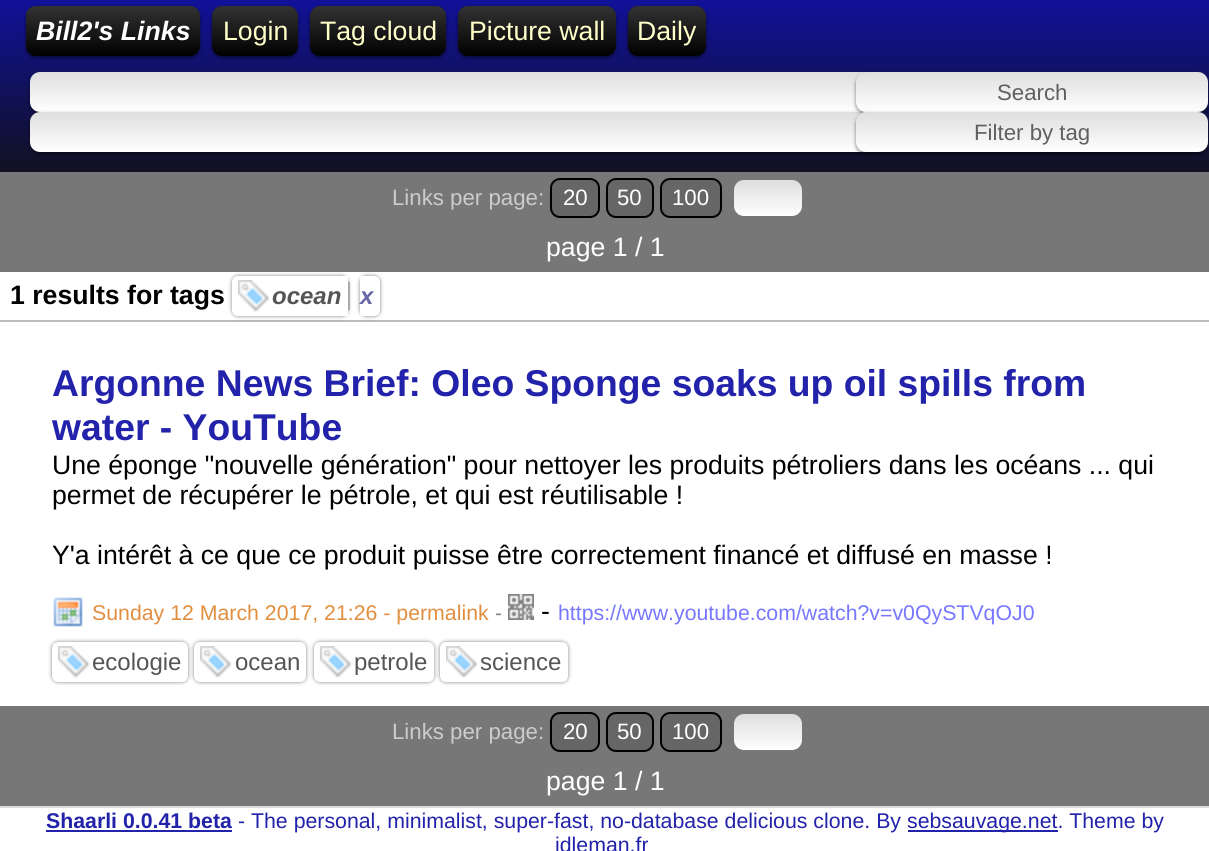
#include <cairo.h>
#include <math.h>
#include <stddef.h>

static cairo_t *c;
static void C(unsigned color){cairo_set_source_rgb(c, (color >> 16) / 255.0, (color >> 8 & 255) / 255.0, (color & 255) / 255.0);}
static void F(const char *family, double size, int italic, int bold){cairo_select_font_face(c, family, italic ? CAIRO_FONT_SLANT_ITALIC : CAIRO_FONT_SLANT_NORMAL,bold ? CAIRO_FONT_WEIGHT_BOLD : CAIRO_FONT_WEIGHT_NORMAL);cairo_set_font_size(c, size);}
static void T(double x, double y, const char *s){cairo_move_to(c, x, y);cairo_show_text(c, s);}
static void R(double x, double y, double w, double h){cairo_rectangle(c, x, y, w, h);cairo_fill(c);}
static void Q(double x, double y, double w, double h, double r){cairo_new_sub_path(c);cairo_arc(c, x + w - r, y + h - r, r, 0, M_PI / 2);cairo_arc(c, x + r, y + h - r, r, M_PI / 2, M_PI);cairo_arc(c, x + r, y + r, r, M_PI, 1.5 * M_PI);cairo_arc(c, x + w - r, y + r, r, 1.5 * M_PI, 2 * M_PI);cairo_close_path(c);}
static void S(double x, double y, double w, double h, double r, double blur, double alpha){cairo_push_group_with_content(c, CAIRO_CONTENT_ALPHA);cairo_set_operator(c, CAIRO_OPERATOR_SOURCE);for (int i = 15; i >= -15 && fmin(w, h) + blur * i / 3 > 0; i -= 2) {double e = blur * i / 6;cairo_set_source_rgba(c, 0, 0, 0, alpha * erfc((i - 1) / 8.5) / 2);Q(x - e, y - e, w + 2 * e, h + 2 * e, fmax(0, fmin(r + e + blur * .6, fmin(w, h) / 2 + e)));cairo_fill(c);}cairo_pattern_t *soft = cairo_pop_group(c);cairo_mask(c, soft);cairo_pattern_destroy(soft);}
static void I(const char *path, double x, double y, double w, double h){cairo_surface_t *image = cairo_image_surface_create_from_png(path);cairo_save(c);cairo_set_source_surface(c, image, x, y);cairo_rectangle(c, x, y, w, h);cairo_fill(c);cairo_restore(c);cairo_surface_destroy(image);}
int main(void) {
cairo_surface_t *surface = cairo_image_surface_create(CAIRO_FORMAT_RGB24, 1209, 851);
c = cairo_create(surface);
cairo_font_options_t *options = cairo_font_options_create();
cairo_font_options_set_hint_metrics(options, CAIRO_HINT_METRICS_OFF);
cairo_font_options_set_hint_style(options, CAIRO_HINT_STYLE_NONE);
cairo_set_font_options(c, options);
cairo_set_miter_limit(c, 4);
cairo_pattern_t *gradient;
C(0xffffff);
cairo_paint(c);
gradient = cairo_pattern_create_linear(605,0,605,172);
cairo_pattern_add_color_stop_rgba(gradient,0,0.067,0.067,0.6,1);
cairo_pattern_add_color_stop_rgba(gradient,1,0.067,0.067,0.133,1);
cairo_set_source(c,gradient);
cairo_pattern_destroy(gradient);
R(0,0,1209,172);
C(0x000000);
S(26,8,174,50,10,2,.5);
gradient = cairo_pattern_create_linear(113,6,113,56);
cairo_pattern_add_color_stop_rgba(gradient,0,0.2,0.2,0.2,1);
cairo_pattern_add_color_stop_rgba(gradient,1,0,0,0,1);
cairo_set_source(c,gradient);
cairo_pattern_destroy(gradient);
Q(26,6,174,50,10);
cairo_fill(c);
F("Liberation Sans",26.65,1,1);
C(0xffffff);
T(36,40,"Bill2's Links");
C(0x000000);
S(212,8,86,50,10,2,.5);
gradient = cairo_pattern_create_linear(255,6,255,56);
cairo_pattern_add_color_stop_rgba(gradient,0,0.2,0.2,0.2,1);
cairo_pattern_add_color_stop_rgba(gradient,1,0,0,0,1);
cairo_set_source(c,gradient);
cairo_pattern_destroy(gradient);
Q(212,6,86,50,10);
cairo_fill(c);
F("Liberation Sans",26.65,0,0);
C(0xffffca);
T(223,40,"Login");
C(0x000000);
S(310,8,136,50,10,2,.5);
gradient = cairo_pattern_create_linear(378,6,378,56);
cairo_pattern_add_color_stop_rgba(gradient,0,0.2,0.2,0.2,1);
cairo_pattern_add_color_stop_rgba(gradient,1,0,0,0,1);
cairo_set_source(c,gradient);
cairo_pattern_destroy(gradient);
Q(310,6,136,50,10);
cairo_fill(c);
C(0xffffca);
T(320,40,"Tag cloud");
C(0x000000);
S(458,8,158,50,10,2,.5);
gradient = cairo_pattern_create_linear(537,6,537,56);
cairo_pattern_add_color_stop_rgba(gradient,0,0.2,0.2,0.2,1);
cairo_pattern_add_color_stop_rgba(gradient,1,0,0,0,1);
cairo_set_source(c,gradient);
cairo_pattern_destroy(gradient);
Q(458,6,158,50,10);
cairo_fill(c);
C(0xffffca);
T(469,40,"Picture wall");
C(0x000000);
S(628,8,78,50,10,2,.5);
gradient = cairo_pattern_create_linear(667,6,667,56);
cairo_pattern_add_color_stop_rgba(gradient,0,0.2,0.2,0.2,1);
cairo_pattern_add_color_stop_rgba(gradient,1,0,0,0,1);
cairo_set_source(c,gradient);
cairo_pattern_destroy(gradient);
Q(628,6,78,50,10);
cairo_fill(c);
C(0xffffca);
T(637,40,"Daily");
C(0x000000);
S(30,74,1170,40,10,2,.5);
gradient = cairo_pattern_create_linear(615,72,615,112);
cairo_pattern_add_color_stop_rgba(gradient,0,0.871,0.871,0.871,1);
cairo_pattern_add_color_stop_rgba(gradient,1,1,1,1,1);
cairo_set_source(c,gradient);
cairo_pattern_destroy(gradient);
Q(30,72,1170,40,10);
cairo_fill(c);
C(0x000000);
S(30,114,1170,40,10,2,.5);
gradient = cairo_pattern_create_linear(615,112,615,152);
cairo_pattern_add_color_stop_rgba(gradient,0,0.871,0.871,0.871,1);
cairo_pattern_add_color_stop_rgba(gradient,1,1,1,1,1);
cairo_set_source(c,gradient);
cairo_pattern_destroy(gradient);
Q(30,112,1170,40,10);
cairo_fill(c);
C(0x000000);
S(856,74,352,40,10,2,.5);
gradient = cairo_pattern_create_linear(1032,72,1032,112);
cairo_pattern_add_color_stop_rgba(gradient,0,0.871,0.871,0.871,1);
cairo_pattern_add_color_stop_rgba(gradient,1,1,1,1,1);
cairo_set_source(c,gradient);
cairo_pattern_destroy(gradient);
Q(856,72,352,40,10);
cairo_fill(c);
F("Liberation Sans",22.25,0,0);
C(0x606060);
T(997,100,"Search");
C(0x000000);
S(856,114,352,40,10,2,.5);
gradient = cairo_pattern_create_linear(1032,112,1032,152);
cairo_pattern_add_color_stop_rgba(gradient,0,0.871,0.871,0.871,1);
cairo_pattern_add_color_stop_rgba(gradient,1,1,1,1,1);
cairo_set_source(c,gradient);
cairo_pattern_destroy(gradient);
Q(856,112,352,40,10);
cairo_fill(c);
C(0x606060);
T(974,140,"Filter by tag");
C(0x777777);
R(0,172,1209,100);
C(0xcccccc);
T(392,205,"Links per page:");
C(0x666666);
Q(551,179,48,38,9);
cairo_fill_preserve(c);
C(0x000000);
cairo_stroke(c);
C(0xffffff);
T(563,205,"20");
C(0x666666);
Q(607,179,46,38,9);
cairo_fill_preserve(c);
C(0x000000);
cairo_stroke(c);
C(0xffffff);
T(617,205,"50");
C(0x666666);
Q(661,179,60,38,9);
cairo_fill_preserve(c);
C(0x000000);
cairo_stroke(c);
C(0xffffff);
T(672,205,"100");
gradient = cairo_pattern_create_linear(768,180,768,216);
cairo_pattern_add_color_stop_rgba(gradient,0,0.871,0.871,0.871,1);
cairo_pattern_add_color_stop_rgba(gradient,1,1,1,1,1);
cairo_set_source(c,gradient);
cairo_pattern_destroy(gradient);
Q(734,180,68,36,10);
cairo_fill(c);
F("Liberation Sans",26.65,0,0);
C(0xffffff);
T(546,256,"page 1 / 1");
F("Liberation Sans",26.65,0,1);
C(0x000000);
T(10,304,"1 results for tags");
C(0xbbbbbb);
R(0,320,1209,2);
C(0x000000);
S(232,276,116,40,6,2,.5);
C(0xffffff);
cairo_new_path(c);
cairo_move_to(c,238,276);
cairo_line_to(c,348,276);
cairo_line_to(c,348,316);
cairo_line_to(c,238,316);
cairo_curve_to(c,234.5,316,232,313.5,232,310);
cairo_line_to(c,232,282);
cairo_curve_to(c,232,278.5,234.5,276,238,276);
cairo_close_path(c);
cairo_fill(c);
I("1.png",238,280,32,32);
F("Liberation Sans",24,1,1);
C(0x555555);
T(272,304,"ocean");
C(0xaaaaaa);
R(348,282,2,28);
C(0x000000);
S(360,276,20,40,6,2,.5);
C(0xffffff);
cairo_new_path(c);
cairo_move_to(c,360,276);
cairo_line_to(c,374,276);
cairo_curve_to(c,377.5,276,380,278.5,380,282);
cairo_line_to(c,380,310);
cairo_curve_to(c,380,313.5,377.5,316,374,316);
cairo_line_to(c,360,316);
cairo_close_path(c);
cairo_fill(c);
C(0x6767a7);
T(360,304,"x");
F("Liberation Sans",37.3,0,1);
C(0x2222aa);
T(52,396,"Argonne News Brief: Oleo Sponge soaks up oil spills from");
T(52,440,"water - YouTube");
F("Liberation Sans",26.65,0,0);
C(0x000000);
T(52,474,"Une éponge \"nouvelle génération\" pour nettoyer les produits pétroliers dans les océans ... qui");
T(52,504,"permet de récupérer le pétrole, et qui est réutilisable !");
T(52,564,"Y'a intérêt à ce que ce produit puisse être correctement financé et diffusé en masse !");
I("2.png",53,597,30,30);
F("Liberation Sans",21.3,0,0);
C(0xe28e3f);
T(92,620,"Sunday 12 March 2017, 21:26 - permalink");
I("3.png",508,594,26,26);
F("Liberation Sans",26.65,0,0);
C(0x000000);
T(541,620,"-");
F("Liberation Sans",21.3,0,0);
C(0x7777ff);
T(558,620,"https://www.youtube.com/watch?v=v0QySTVqOJ0");
C(0x888888);
T(495,620,"-");
C(0x000000);
S(52,642,136,40,6,2,.5);
C(0xffffff);
Q(52,642,136,40,6);
cairo_fill(c);
I("1.png",58,646,32,32);
F("Liberation Sans",24,0,0);
C(0x555555);
T(92,670,"ecologie");
C(0x000000);
S(194,642,112,40,6,2,.5);
C(0xffffff);
Q(194,642,112,40,6);
cairo_fill(c);
I("1.png",200,646,32,32);
C(0x555555);
T(235,670,"ocean");
C(0x000000);
S(314,642,120,40,6,2,.5);
C(0xffffff);
Q(314,642,120,40,6);
cairo_fill(c);
I("1.png",320,646,32,32);
C(0x555555);
T(354,670,"petrole");
C(0x000000);
S(440,642,128,40,6,2,.5);
C(0xffffff);
Q(440,642,128,40,6);
cairo_fill(c);
I("1.png",446,646,32,32);
C(0x555555);
T(480,670,"science");
C(0x777777);
R(0,706,1209,100);
F("Liberation Sans",22.25,0,0);
C(0xcccccc);
T(392,739,"Links per page:");
C(0x666666);
Q(551,713,48,38,9);
cairo_fill_preserve(c);
C(0x000000);
cairo_stroke(c);
C(0xffffff);
T(563,739,"20");
C(0x666666);
Q(607,713,46,38,9);
cairo_fill_preserve(c);
C(0x000000);
cairo_stroke(c);
C(0xffffff);
T(617,739,"50");
C(0x666666);
Q(661,713,60,38,9);
cairo_fill_preserve(c);
C(0x000000);
cairo_stroke(c);
C(0xffffff);
T(672,739,"100");
gradient = cairo_pattern_create_linear(768,714,768,750);
cairo_pattern_add_color_stop_rgba(gradient,0,0.871,0.871,0.871,1);
cairo_pattern_add_color_stop_rgba(gradient,1,1,1,1,1);
cairo_set_source(c,gradient);
cairo_pattern_destroy(gradient);
Q(734,714,68,36,10);
cairo_fill(c);
F("Liberation Sans",26.65,0,0);
C(0xffffff);
T(546,790,"page 1 / 1");
C(0xdddddd);
R(0,806,1209,2);
F("Liberation Sans",21.3,0,1);
C(0x2222aa);
T(46,828,"Shaarli 0.0.41 beta");
R(46,830,186,2);
F("Liberation Sans",21.3,0,0);
T(238,828,"- The personal, minimalist, super-fast, no-database delicious clone. By");
R(908,830,150,2);
T(907,828,"sebsauvage.net. Theme by");
T(555,852,"idleman.fr");
cairo_surface_write_to_png(surface, "o.png");
cairo_font_options_destroy(options);
cairo_destroy(c);
cairo_surface_destroy(surface);
return 0;
}
